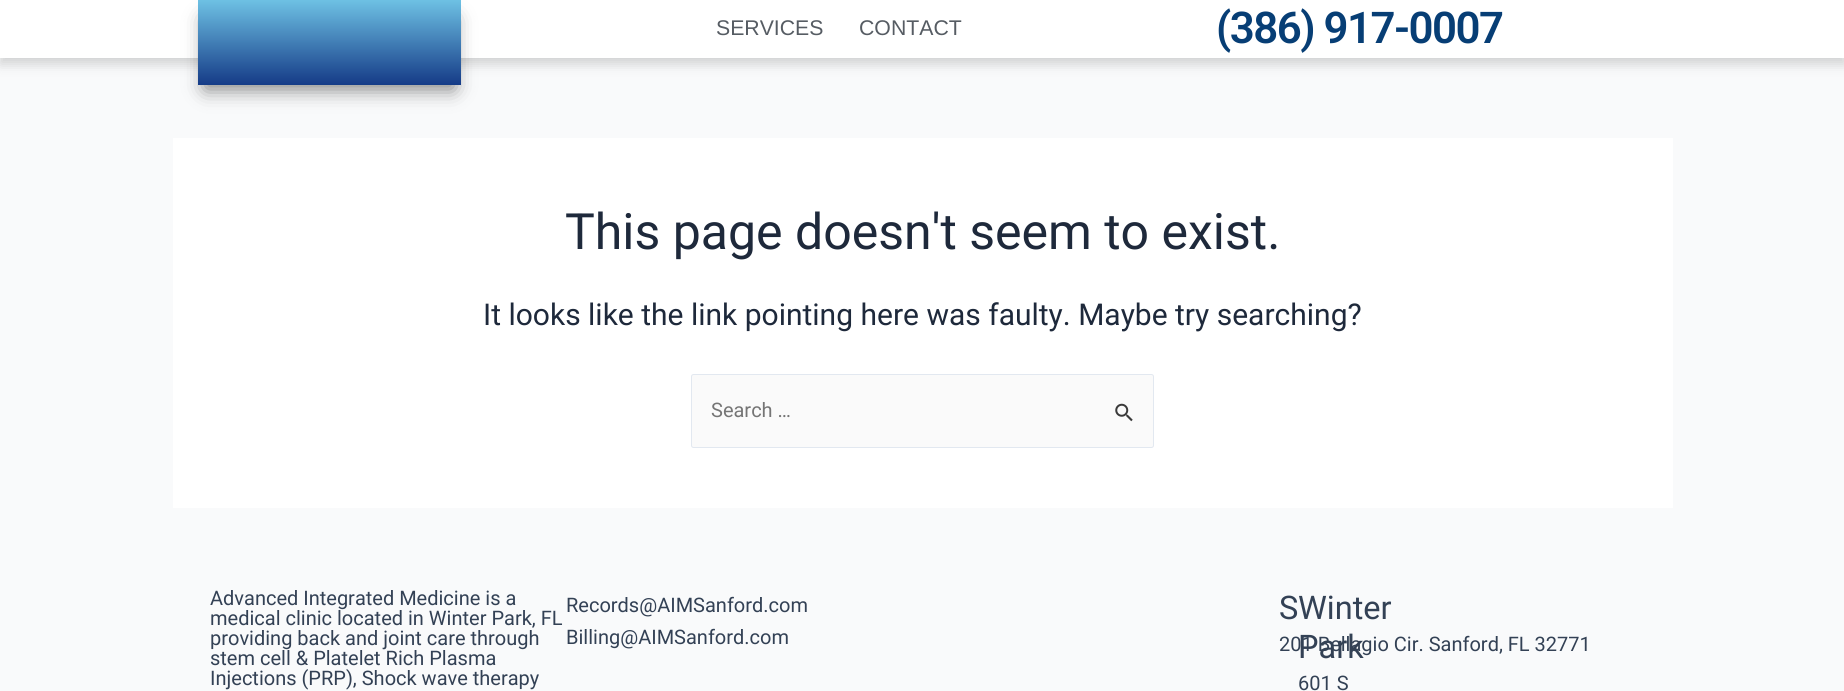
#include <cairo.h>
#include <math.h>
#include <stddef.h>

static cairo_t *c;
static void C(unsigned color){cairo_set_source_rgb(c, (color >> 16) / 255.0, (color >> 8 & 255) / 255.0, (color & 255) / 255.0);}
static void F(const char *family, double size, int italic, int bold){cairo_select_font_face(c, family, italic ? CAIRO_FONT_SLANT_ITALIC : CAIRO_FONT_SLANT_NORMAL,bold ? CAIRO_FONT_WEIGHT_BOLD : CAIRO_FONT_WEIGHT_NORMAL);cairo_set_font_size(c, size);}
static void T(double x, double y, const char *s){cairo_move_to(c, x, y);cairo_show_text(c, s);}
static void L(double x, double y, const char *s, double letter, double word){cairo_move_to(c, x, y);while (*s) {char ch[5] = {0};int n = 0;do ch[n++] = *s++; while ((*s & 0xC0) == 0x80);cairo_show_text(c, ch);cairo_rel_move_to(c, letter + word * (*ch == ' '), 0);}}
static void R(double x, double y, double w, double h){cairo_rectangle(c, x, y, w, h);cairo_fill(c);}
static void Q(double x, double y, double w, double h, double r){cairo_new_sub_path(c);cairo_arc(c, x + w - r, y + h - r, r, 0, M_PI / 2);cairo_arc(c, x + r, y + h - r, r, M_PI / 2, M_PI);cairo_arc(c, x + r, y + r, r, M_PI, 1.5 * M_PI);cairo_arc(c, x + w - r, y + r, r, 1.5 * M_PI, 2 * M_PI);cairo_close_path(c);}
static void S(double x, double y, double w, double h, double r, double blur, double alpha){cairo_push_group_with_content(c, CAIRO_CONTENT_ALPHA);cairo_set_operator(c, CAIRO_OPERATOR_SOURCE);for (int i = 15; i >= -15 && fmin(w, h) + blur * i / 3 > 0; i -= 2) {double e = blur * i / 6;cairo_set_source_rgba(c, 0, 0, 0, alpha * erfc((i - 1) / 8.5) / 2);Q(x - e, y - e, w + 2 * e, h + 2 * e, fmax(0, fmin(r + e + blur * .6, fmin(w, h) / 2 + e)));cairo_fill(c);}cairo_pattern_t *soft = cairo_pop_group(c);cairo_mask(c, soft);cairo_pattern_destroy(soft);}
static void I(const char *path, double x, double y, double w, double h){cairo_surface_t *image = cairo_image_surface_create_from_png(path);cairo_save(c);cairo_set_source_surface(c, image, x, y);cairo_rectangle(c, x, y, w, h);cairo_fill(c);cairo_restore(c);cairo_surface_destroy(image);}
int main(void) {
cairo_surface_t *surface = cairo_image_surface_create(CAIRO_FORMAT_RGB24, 1844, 691);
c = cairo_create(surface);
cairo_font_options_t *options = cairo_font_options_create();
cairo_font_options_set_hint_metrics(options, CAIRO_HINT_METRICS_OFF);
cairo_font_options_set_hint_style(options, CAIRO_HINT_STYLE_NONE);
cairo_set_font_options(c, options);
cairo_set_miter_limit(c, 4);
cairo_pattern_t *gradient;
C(0xf9fafb);
cairo_paint(c);
C(0x000000);
S(0,6,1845,58,0,6,.17);
C(0xffffff);
R(0,0,1844,58);
C(0x000000);
S(205,19,249,70,0,10,.5);
gradient = cairo_pattern_create_linear(329,0,329,85);
cairo_pattern_add_color_stop_rgba(gradient,0,0.431,0.757,0.894,1);
cairo_pattern_add_color_stop_rgba(gradient,1,0.082,0.231,0.529,1);
cairo_set_source(c,gradient);
cairo_pattern_destroy(gradient);
R(198,0,263,85);
F("Liberation Sans",21.25,0,0);
C(0x565c63);
T(716,35,"SERVICES");
T(859,35,"CONTACT");
F("Roboto SemiBold",43.75,0,0);
C(0x073e75);
L(1216,43,"(386) 917-0007",-1.5,0);
C(0xffffff);
R(173,138,1500,370);
F("Roboto",50,0,0);
C(0x1e293b);
T(565,249,"This page doesn't seem to exist.");
F("Roboto",30,0,0);
T(483,325,"It looks like the link pointing here was faulty. Maybe try searching?");
C(0xfafafa);
Q(691.5,374.5,462,73,2);
cairo_fill_preserve(c);
C(0xe2e8f0);
cairo_set_line_width(c,1);
cairo_stroke(c);
F("Roboto",20,0,0);
C(0x757575);
T(711,417,"Search …");
I("1.png",1115,403,18,19);
C(0x334155);
T(210,605,"Advanced Integrated Medicine is a");
T(210,625,"medical clinic located in Winter Park, FL");
T(210,645,"providing back and joint care through");
T(210,665,"stem cell & Platelet Rich Plasma");
T(210,685,"Injections (PRP), Shock wave therapy");
F("Roboto",32.5,0,0);
T(1279,619,"S");
T(1298,658,"Park");
F("Roboto",20,0,0);
T(1279,651,"201 Bellagio Cir. Sanford, FL 32771");
T(566,612,"Records@AIMSanford.com");
T(566,644,"Billing@AIMSanford.com");
F("Roboto",32.5,0,0);
T(1298,619,"Winter");
F("Roboto",20,0,0);
T(1298,690,"601 S");
cairo_surface_write_to_png(surface, "o.png");
cairo_font_options_destroy(options);
cairo_destroy(c);
cairo_surface_destroy(surface);
return 0;
}
